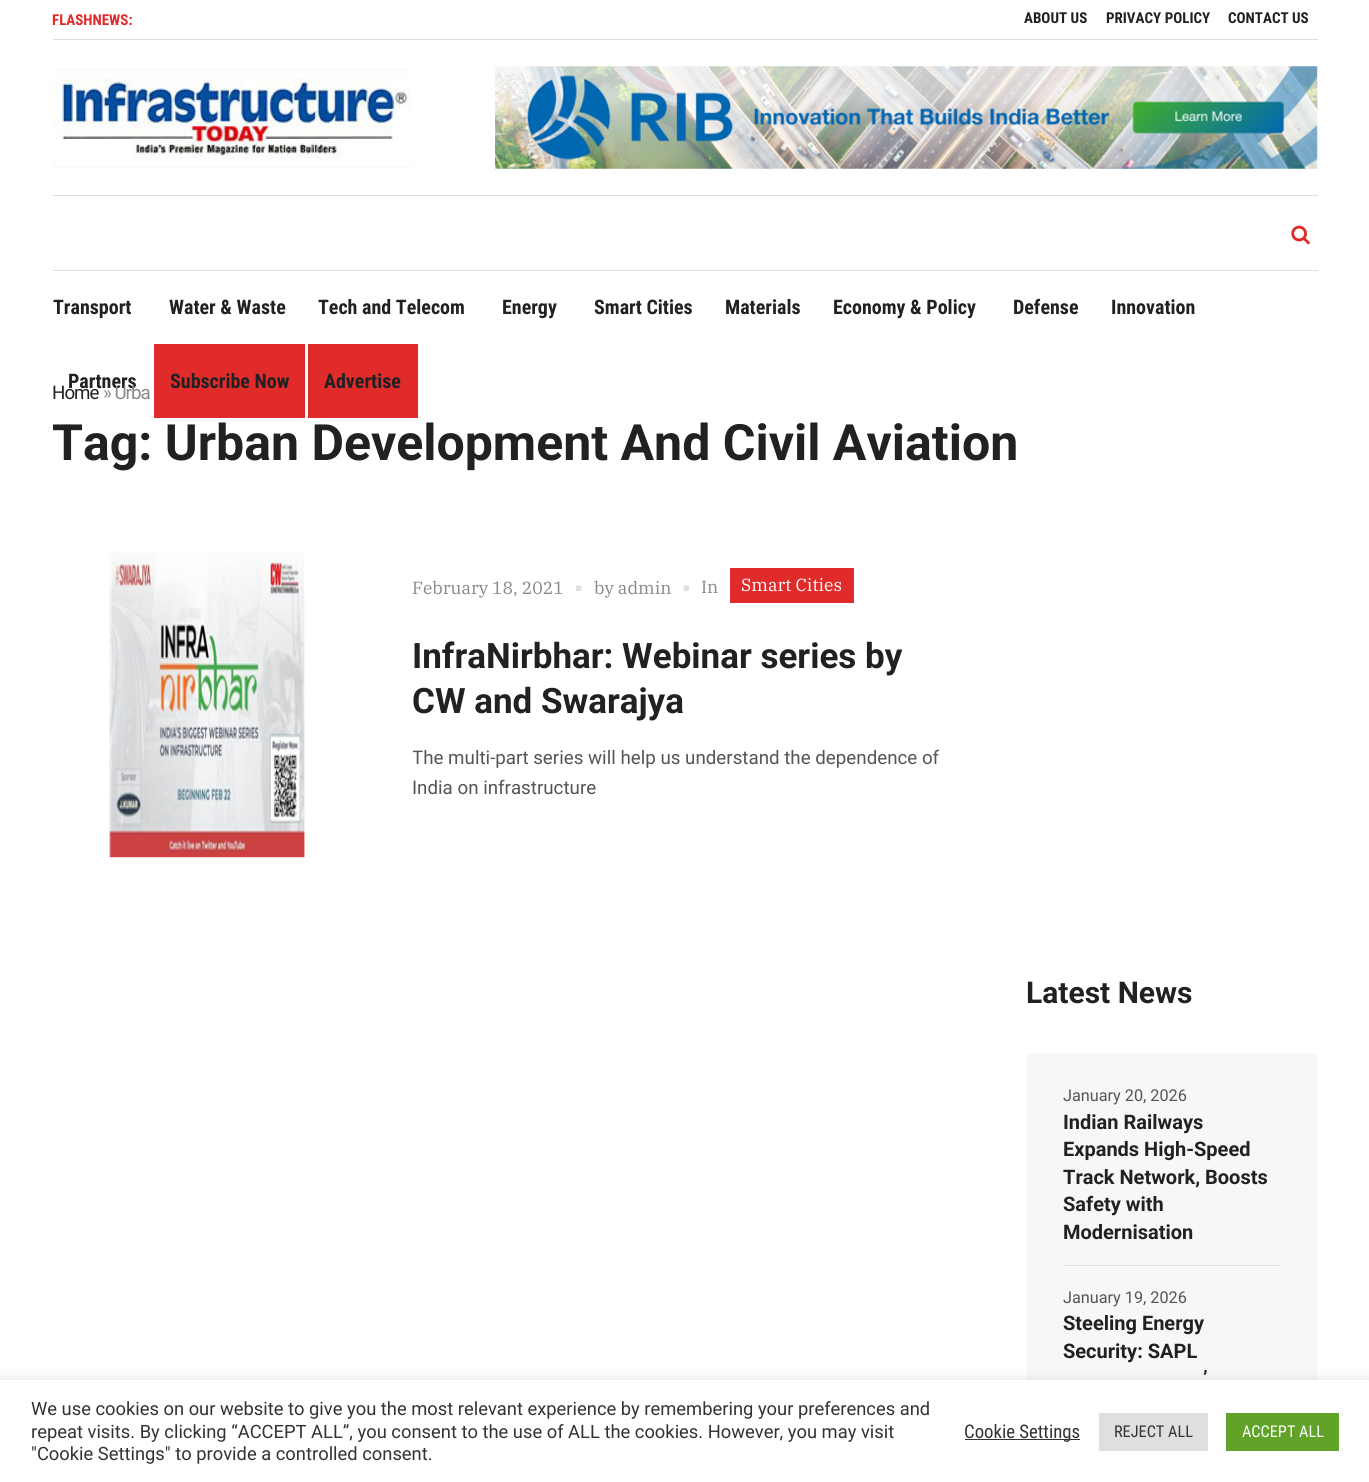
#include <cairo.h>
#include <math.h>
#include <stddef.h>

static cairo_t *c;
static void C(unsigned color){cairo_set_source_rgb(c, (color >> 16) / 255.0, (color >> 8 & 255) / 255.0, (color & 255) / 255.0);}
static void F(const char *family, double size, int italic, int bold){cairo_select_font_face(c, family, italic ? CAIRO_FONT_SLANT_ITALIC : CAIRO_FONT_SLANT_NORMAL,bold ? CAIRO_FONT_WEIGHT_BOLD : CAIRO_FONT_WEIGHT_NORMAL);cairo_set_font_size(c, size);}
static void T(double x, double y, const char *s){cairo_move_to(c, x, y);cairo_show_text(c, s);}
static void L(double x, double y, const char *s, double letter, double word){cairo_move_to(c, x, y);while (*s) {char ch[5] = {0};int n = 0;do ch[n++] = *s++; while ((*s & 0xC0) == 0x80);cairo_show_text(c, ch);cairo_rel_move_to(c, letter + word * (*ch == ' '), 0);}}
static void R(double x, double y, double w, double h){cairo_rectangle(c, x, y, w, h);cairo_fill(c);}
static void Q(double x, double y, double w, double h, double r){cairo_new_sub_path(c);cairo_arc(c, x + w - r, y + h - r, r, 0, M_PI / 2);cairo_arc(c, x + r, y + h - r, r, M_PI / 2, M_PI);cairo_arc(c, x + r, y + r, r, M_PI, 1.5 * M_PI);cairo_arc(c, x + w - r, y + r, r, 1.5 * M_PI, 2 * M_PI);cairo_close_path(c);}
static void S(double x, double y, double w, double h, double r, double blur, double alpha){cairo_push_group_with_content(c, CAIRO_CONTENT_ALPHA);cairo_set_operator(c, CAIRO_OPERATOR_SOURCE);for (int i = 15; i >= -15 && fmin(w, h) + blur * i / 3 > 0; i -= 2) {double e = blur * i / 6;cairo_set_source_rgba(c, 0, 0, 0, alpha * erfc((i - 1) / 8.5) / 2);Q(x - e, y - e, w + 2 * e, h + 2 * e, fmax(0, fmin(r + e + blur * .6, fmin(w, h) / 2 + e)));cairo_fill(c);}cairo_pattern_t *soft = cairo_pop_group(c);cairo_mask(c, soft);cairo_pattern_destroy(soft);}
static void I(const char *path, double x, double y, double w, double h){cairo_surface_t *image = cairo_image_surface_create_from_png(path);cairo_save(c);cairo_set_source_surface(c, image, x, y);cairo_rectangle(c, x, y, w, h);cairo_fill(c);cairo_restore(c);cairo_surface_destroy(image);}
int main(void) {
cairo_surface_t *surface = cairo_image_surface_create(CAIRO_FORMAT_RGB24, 1369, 1482);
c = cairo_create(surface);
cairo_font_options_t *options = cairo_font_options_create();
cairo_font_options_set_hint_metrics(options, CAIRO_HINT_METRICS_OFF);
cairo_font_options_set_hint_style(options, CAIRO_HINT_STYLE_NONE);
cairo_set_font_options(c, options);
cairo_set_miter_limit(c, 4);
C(0xffffff);
cairo_paint(c);
C(0xdedede);
R(53,39,1265,1);
F("Roboto Condensed",15,0,1);
C(0xe12b2b);
T(52,25,"FLASHNEWS:");
C(0x212121);
T(1024,23,"ABOUT US");
T(1106,23,"PRIVACY POLICY");
T(1228,23,"CONTACT US");
C(0xdedede);
R(53,195,1265,1);
I("1.png",52,69,359,99);
I("2.png",495,66,823,103);
R(53,270,1265,1);
I("3.png",1291,225,19,20);
F("Roboto Condensed",20,0,1);
C(0x212121);
T(53,314,"Transport");
T(169,314,"Water & Waste");
T(318,314,"Tech and Telecom");
T(502,314,"Energy");
T(594,314,"Smart Cities");
T(725,314,"Materials");
T(833,314,"Economy & Policy");
T(1013,314,"Defense");
T(1111,314,"Innovation");
T(68,388,"Partners");
C(0xe12b2b);
R(154,344,151,74);
C(0x212121);
T(170,388,"Subscribe Now");
C(0xe12b2b);
R(308,344,110,74);
C(0x212121);
T(324,388,"Advertise");
F("Roboto",18.75,0,0);
L(52,399,"Home",-1,0);
C(0x878787);
L(103,399,"» Urba",-1,0);
F("Roboto",50,0,1);
C(0x212121);
T(52,460,"Tag: Urban Development And Civil Aviation");
I("4.png",109,551,196,307);
F("IBM Plex Serif",17.5,0,0);
C(0x878787);
T(412,594,"February 18, 2021");
C(0xe1e1e1);
cairo_new_path(c);
cairo_move_to(c,581.5,585.5);
cairo_line_to(c,581.5,591);
cairo_line_to(c,576,591);
cairo_line_to(c,576,585.5);
cairo_close_path(c);
cairo_fill(c);
C(0x878787);
T(594,594,"by admin");
C(0xe1e1e1);
cairo_new_path(c);
cairo_move_to(c,689,585.5);
cairo_line_to(c,689,591);
cairo_line_to(c,683.5,591);
cairo_line_to(c,683.5,585.5);
cairo_close_path(c);
cairo_fill(c);
C(0x878787);
T(701,593,"In");
C(0xe12b2b);
R(730,568,124,35);
C(0xffffff);
T(741,591,"Smart Cities");
F("Roboto",35,0,1);
C(0x212121);
T(412,668,"InfraNirbhar: Webinar series by");
T(412,713,"CW and Swarajya");
cairo_save(c);
cairo_rectangle(c,413,743,551,85);
cairo_clip(c);
F("Roboto",18.75,0,0);
C(0x555555);
T(412,764,"The multi-part series will help us understand the dependence of");
cairo_restore(c);
F("Roboto",18.75,0,0);
C(0x555555);
T(412,794,"India on infrastructure");
F("Roboto",30,0,1);
C(0x212121);
T(1026,1003,"Latest News");
C(0xf7f7f7);
Q(1026,1053,292,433,4);
cairo_fill(c);
C(0xe1e1e1);
R(1064,1265,216,1);
F("Roboto",16.25,0,0);
C(0x555555);
T(1063,1101,"January 20, 2026");
F("Roboto",20,0,1);
C(0x212121);
T(1063,1129,"Indian Railways");
T(1063,1156,"Expands High-Speed");
T(1063,1184,"Track Network, Boosts");
T(1063,1211,"Safety with");
T(1063,1239,"Modernisation");
F("Roboto",16.25,0,0);
C(0x555555);
T(1063,1303,"January 19, 2026");
F("Roboto",20,0,1);
C(0x212121);
T(1063,1330,"Steeling Energy");
T(1063,1358,"Security: SAPL");
T(1203,1385,"’");
C(0xacabab);
S(0,1379,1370,102,0,6,.3);
C(0xffffff);
R(0,1380,1369,102);
F("Roboto",18.35,0,0);
C(0x333333);
T(31,1415,"We use cookies on our website to give you the most relevant experience by remembering your preferences and");
T(31,1438,"repeat visits. By clicking “ACCEPT ALL”, you consent to the use of ALL the cookies. However, you may visit");
T(31,1460,"\"Cookie Settings\" to provide a controlled consent.");
R(965,1439,115,1);
F("Roboto Condensed",18.75,0,0);
T(964,1438,"Cookie Settings");
C(0xdedfe0);
R(1099,1413,109,38);
F("Roboto Condensed",16.25,0,0);
C(0x333333);
T(1114,1437,"REJECT ALL");
C(0x61a229);
R(1226,1413,113,38);
C(0xffffff);
T(1242,1437,"ACCEPT ALL");
cairo_surface_write_to_png(surface, "o.png");
cairo_font_options_destroy(options);
cairo_destroy(c);
cairo_surface_destroy(surface);
return 0;
}
